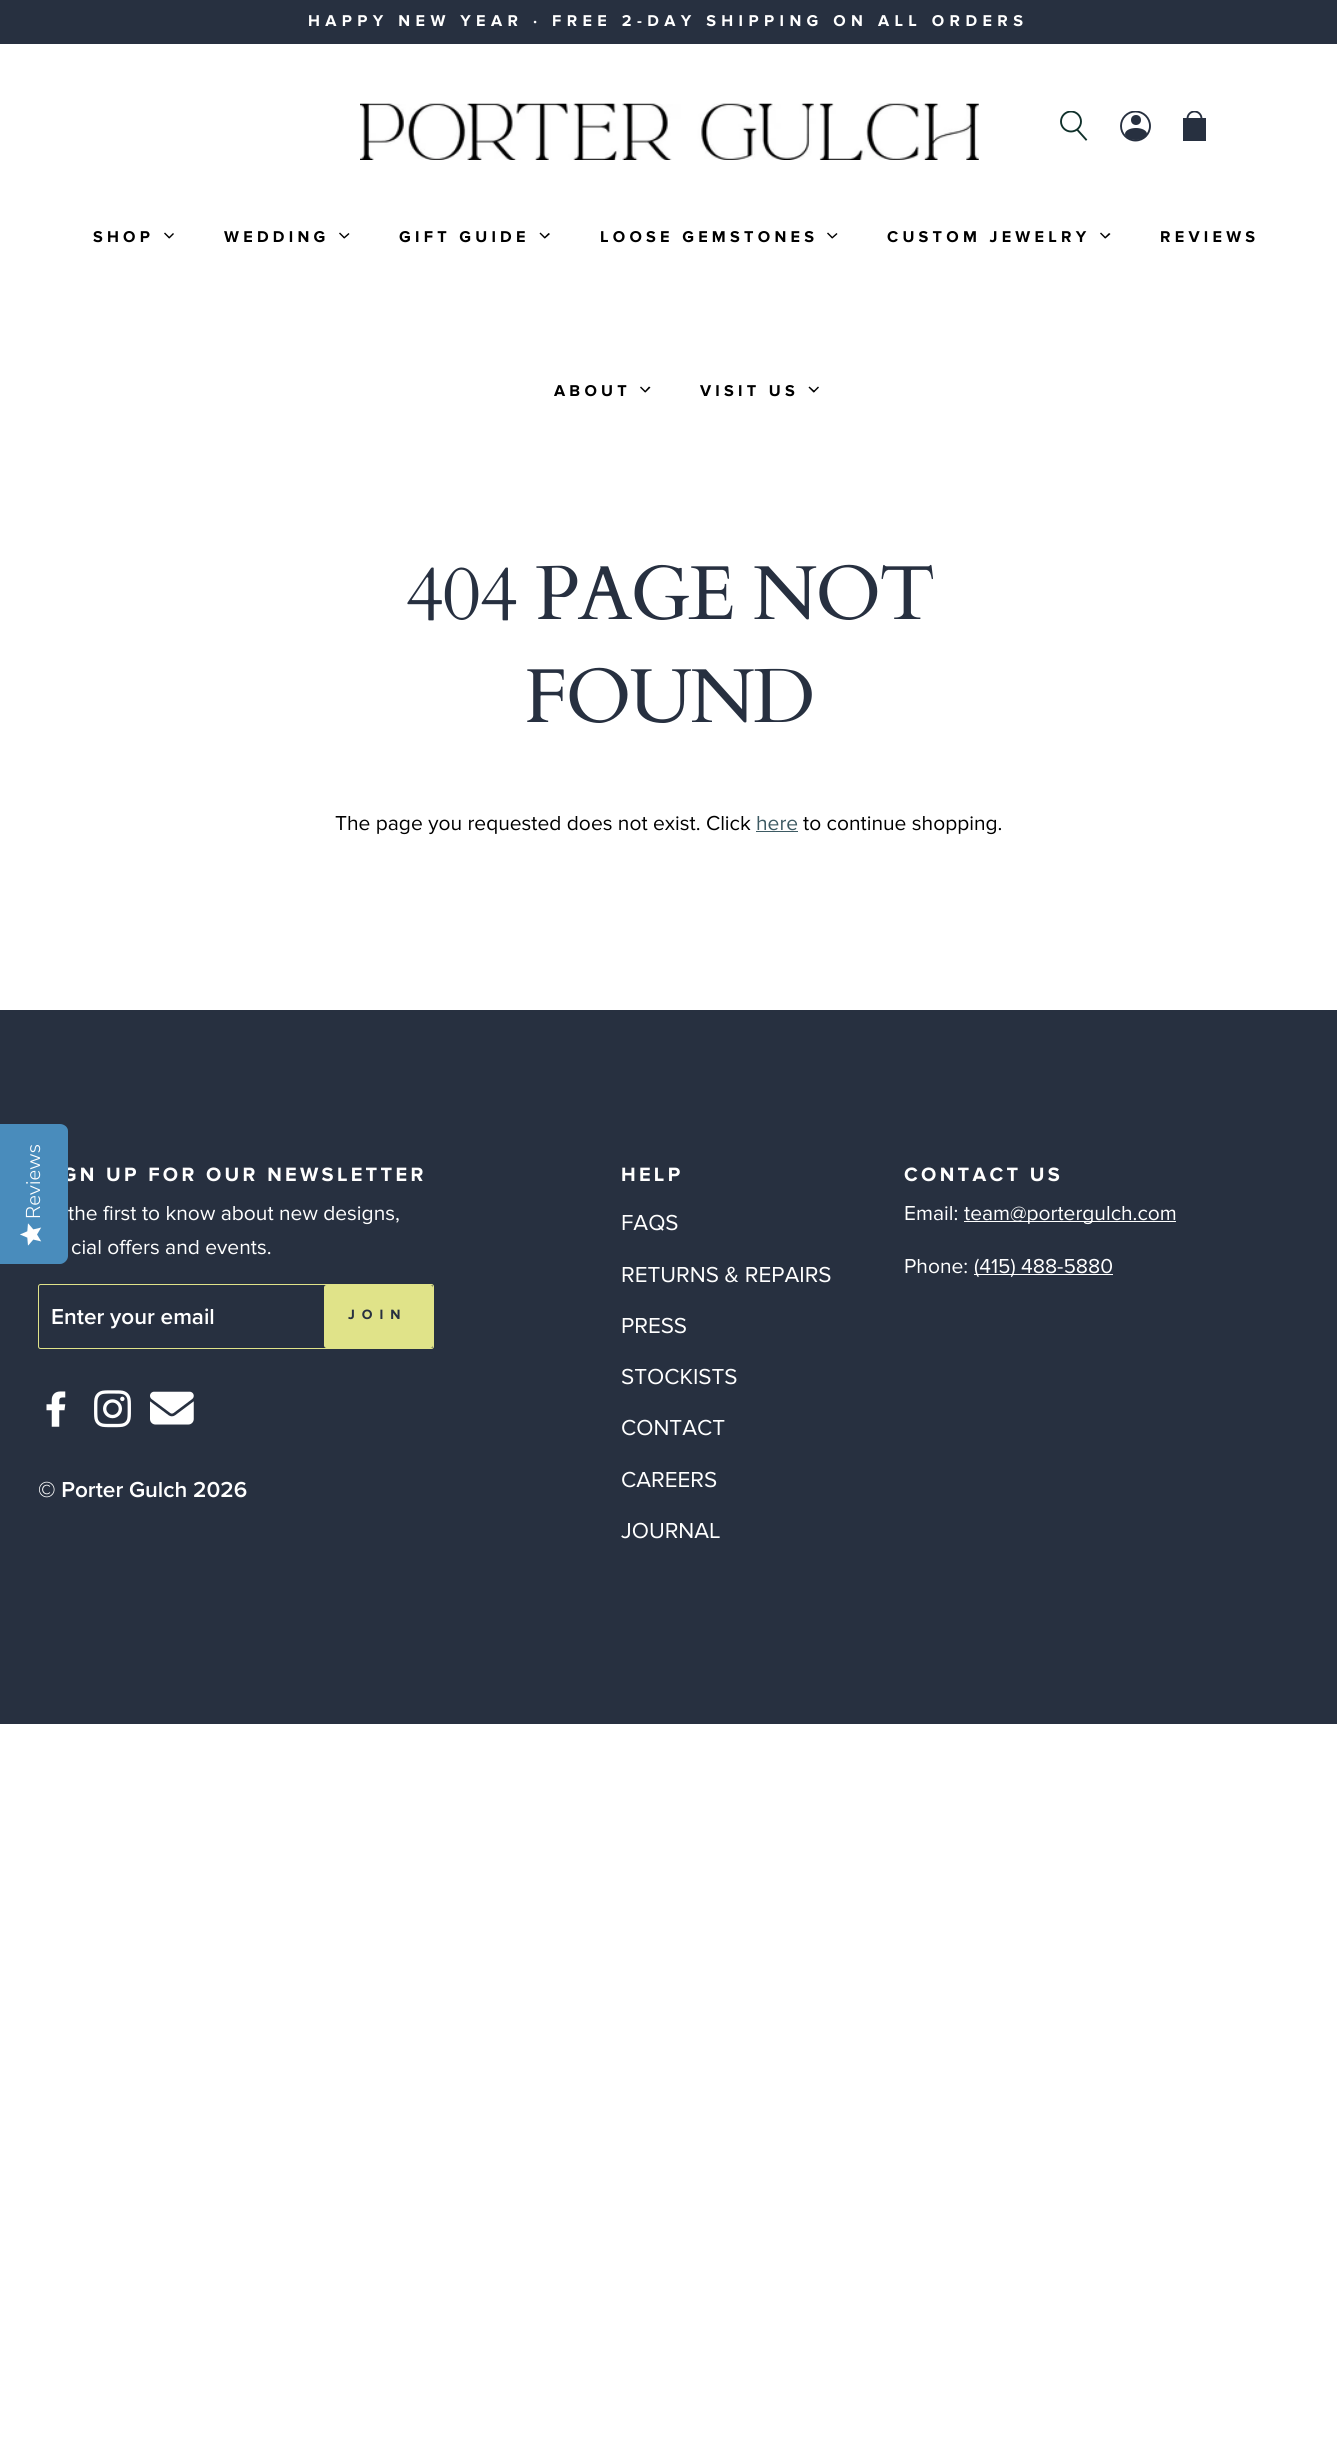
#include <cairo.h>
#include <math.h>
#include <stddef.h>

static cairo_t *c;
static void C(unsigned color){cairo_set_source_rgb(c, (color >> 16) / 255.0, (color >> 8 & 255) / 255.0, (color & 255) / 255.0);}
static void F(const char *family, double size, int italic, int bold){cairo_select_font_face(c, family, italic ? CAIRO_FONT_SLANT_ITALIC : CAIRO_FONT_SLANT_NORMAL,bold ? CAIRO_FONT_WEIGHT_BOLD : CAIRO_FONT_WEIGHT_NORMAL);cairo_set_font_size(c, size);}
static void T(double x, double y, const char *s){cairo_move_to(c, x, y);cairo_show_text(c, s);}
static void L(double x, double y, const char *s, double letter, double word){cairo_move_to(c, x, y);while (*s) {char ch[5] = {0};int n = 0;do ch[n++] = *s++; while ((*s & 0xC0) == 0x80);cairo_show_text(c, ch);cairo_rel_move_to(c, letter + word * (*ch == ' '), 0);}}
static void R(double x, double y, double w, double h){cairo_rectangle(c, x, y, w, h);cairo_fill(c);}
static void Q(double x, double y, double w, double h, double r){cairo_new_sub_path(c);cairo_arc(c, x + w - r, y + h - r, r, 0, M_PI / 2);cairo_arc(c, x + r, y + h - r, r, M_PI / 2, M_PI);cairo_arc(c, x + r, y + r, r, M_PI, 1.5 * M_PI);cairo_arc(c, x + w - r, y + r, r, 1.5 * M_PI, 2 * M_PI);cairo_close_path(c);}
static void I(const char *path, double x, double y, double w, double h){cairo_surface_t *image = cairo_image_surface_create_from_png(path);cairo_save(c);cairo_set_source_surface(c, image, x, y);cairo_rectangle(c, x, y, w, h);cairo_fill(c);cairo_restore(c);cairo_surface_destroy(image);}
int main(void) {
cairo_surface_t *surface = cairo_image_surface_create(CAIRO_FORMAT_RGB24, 1337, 2455);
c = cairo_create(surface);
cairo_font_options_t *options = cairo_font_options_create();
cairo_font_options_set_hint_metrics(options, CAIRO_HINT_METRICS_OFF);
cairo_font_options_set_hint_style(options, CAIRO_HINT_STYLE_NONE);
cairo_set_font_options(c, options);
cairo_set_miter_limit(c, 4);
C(0xffffff);
cairo_paint(c);
C(0x273040);
R(0,0,1337,44);
F("Proxima Nova",16.25,0,1);
C(0xffffff);
L(308,26,"HAPPY NEW YEAR · FREE 2-DAY SHIPPING ON ALL ORDERS",5.4,0);
I("1.png",360,103,619,57);
cairo_save(c);
cairo_rectangle(c,1060,111,29,32);
cairo_clip(c);
cairo_arc(c,1071,121.5,10,0,2 * M_PI);
C(0x10312b);
cairo_set_line_width(c,1.9);
cairo_stroke(c);
cairo_restore(c);
cairo_new_path(c);
cairo_move_to(c,1077.5,130);
cairo_line_to(c,1086,139.5);
C(0x10312b);
cairo_set_line_width(c,1.9);
cairo_set_line_cap(c,CAIRO_LINE_CAP_SQUARE);
cairo_stroke(c);
cairo_save(c);
cairo_rectangle(c,1120,111,31,32);
cairo_clip(c);
cairo_arc(c,1135.5,126,14.5,0,2 * M_PI);
C(0x273040);
cairo_set_line_cap(c,CAIRO_LINE_CAP_BUTT);
cairo_stroke(c);
cairo_restore(c);
C(0x273040);
cairo_arc(c,1136,120,5,0,2 * M_PI);
cairo_fill(c);
cairo_new_path(c);
cairo_move_to(c,1136,128);
cairo_curve_to(c,1142,128,1147,130.5,1147,134);
cairo_curve_to(c,1147,137.5,1142,140,1136,140);
cairo_curve_to(c,1130,140,1125,137.5,1125,134);
cairo_curve_to(c,1125,130.5,1130,128,1136,128);
cairo_close_path(c);
cairo_fill(c);
cairo_save(c);
cairo_rectangle(c,1183,111,23,32);
cairo_clip(c);
cairo_arc(c,1194.5,118.5,7,0,2 * M_PI);
cairo_set_line_cap(c,CAIRO_LINE_CAP_BUTT);
cairo_stroke(c);
cairo_restore(c);
R(1183,118,23,23);
C(0x000000);
L(93,242,"SHOP",4.25,0);
cairo_new_path(c);
cairo_move_to(c,173,233);
cairo_line_to(c,174,234);
cairo_line_to(c,169.5,238.5);
cairo_line_to(c,168.5,237.5);
cairo_close_path(c);
cairo_fill(c);
cairo_new_path(c);
cairo_move_to(c,165,232.5);
cairo_line_to(c,170,237.5);
cairo_line_to(c,169,238.5);
cairo_line_to(c,164,233.5);
cairo_close_path(c);
cairo_fill(c);
L(224,242,"WEDDING",4.25,0);
cairo_new_path(c);
cairo_move_to(c,348.5,233);
cairo_line_to(c,349.5,234);
cairo_line_to(c,344.5,238.5);
cairo_line_to(c,343.5,237.5);
cairo_close_path(c);
cairo_fill(c);
cairo_new_path(c);
cairo_move_to(c,340,232.5);
cairo_line_to(c,345,237.5);
cairo_line_to(c,344,238.5);
cairo_line_to(c,339,233.5);
cairo_close_path(c);
cairo_fill(c);
L(399,242,"GIFT GUIDE",4.25,0);
cairo_new_path(c);
cairo_move_to(c,548.5,233);
cairo_line_to(c,550,234);
cairo_line_to(c,545,238.5);
cairo_line_to(c,544,237.5);
cairo_close_path(c);
cairo_fill(c);
cairo_new_path(c);
cairo_move_to(c,540.5,232.5);
cairo_line_to(c,545.5,237.5);
cairo_line_to(c,544.5,238.5);
cairo_line_to(c,539.5,233.5);
cairo_close_path(c);
cairo_fill(c);
L(600,242,"LOOSE GEMSTONES",4.25,0);
cairo_new_path(c);
cairo_move_to(c,836.5,233);
cairo_line_to(c,837.5,234);
cairo_line_to(c,832.5,238.5);
cairo_line_to(c,831.5,237.5);
cairo_close_path(c);
cairo_fill(c);
cairo_new_path(c);
cairo_move_to(c,828,232.5);
cairo_line_to(c,833,237.5);
cairo_line_to(c,832,238.5);
cairo_line_to(c,827,233.5);
cairo_close_path(c);
cairo_fill(c);
L(887,242,"CUSTOM JEWELRY",4.25,0);
cairo_new_path(c);
cairo_move_to(c,1109,233);
cairo_line_to(c,1110.5,234);
cairo_line_to(c,1105.5,238.5);
cairo_line_to(c,1104.5,237.5);
cairo_close_path(c);
cairo_fill(c);
cairo_new_path(c);
cairo_move_to(c,1101,232.5);
cairo_line_to(c,1106,237.5);
cairo_line_to(c,1105,238.5);
cairo_line_to(c,1100,233.5);
cairo_close_path(c);
cairo_fill(c);
L(1160,242,"REVIEWS",4.25,0);
L(554,396,"ABOUT",4.25,0);
cairo_new_path(c);
cairo_move_to(c,649,386.5);
cairo_line_to(c,650.5,387.5);
cairo_line_to(c,645.5,392.5);
cairo_line_to(c,644.5,391.5);
cairo_close_path(c);
cairo_fill(c);
cairo_new_path(c);
cairo_move_to(c,641,386.5);
cairo_line_to(c,646,391.5);
cairo_line_to(c,645,392.5);
cairo_line_to(c,640,387.5);
cairo_close_path(c);
cairo_fill(c);
L(700,396,"VISIT US",4.25,0);
cairo_new_path(c);
cairo_move_to(c,818,386.5);
cairo_line_to(c,819,387.5);
cairo_line_to(c,814,392.5);
cairo_line_to(c,813,391.5);
cairo_close_path(c);
cairo_fill(c);
cairo_new_path(c);
cairo_move_to(c,809.5,386.5);
cairo_line_to(c,815,391.5);
cairo_line_to(c,813.5,392.5);
cairo_line_to(c,808.5,387.5);
cairo_close_path(c);
cairo_fill(c);
F("Cardo",76.5,0,0);
C(0x273040);
L(405,619,"404 PAGE NOT",-2.1,0);
L(524,722,"FOUND",-2.1,0);
F("Proxima Nova",21,0,0);
C(0x000000);
T(335,830,"The page you requested does not exist. Click");
C(0x3d5a63);
T(756,830,"here");
R(756,831,42,1);
C(0x000000);
T(803,830,"to continue shopping.");
C(0x273040);
R(0,1010,1337,714);
F("Proxima Nova",20,0,1);
C(0xffffff);
L(62,1181,"GN UP FOR OUR NEWSLETTER",3.3,0);
C(0x498cbc);
cairo_new_path(c);
cairo_move_to(c,0,1264);
cairo_line_to(c,0,1124);
cairo_line_to(c,60,1124);
cairo_curve_to(c,64,1124,68,1127,68,1131);
cairo_line_to(c,68,1256);
cairo_curve_to(c,68,1260,64,1264,60,1264);
cairo_close_path(c);
cairo_fill(c);
F("Nunito Sans Light",20,0,0);
C(0xffffff);
cairo_save(c);
cairo_translate(c,40,1219);
cairo_rotate(c,-90 * M_PI / 180);
T(0,0,"Reviews");
cairo_restore(c);
I("2.png",20,1223,22,23);
F("Proxima Nova",21,0,0);
T(68,1220,"the first to know about new designs,");
T(71,1254,"cial offers and events.");
Q(38.5,1284.5,395,64,2);
C(0xe0e389);
cairo_set_line_width(c,1);
cairo_set_line_cap(c,CAIRO_LINE_CAP_BUTT);
cairo_stroke(c);
F("Proxima Nova SemiBold",22.5,0,0);
C(0xffffff);
T(51,1324,"Enter your email");
C(0xe0e389);
Q(324,1285,109,63,2.5);
cairo_fill(c);
F("Proxima Nova",14,0,1);
C(0x273040);
L(348,1319,"JOIN",7,0);
I("3.png",46,1391,20,36);
I("4.png",94,1390,37,38);
I("5.png",150,1391,44,34);
F("Proxima Nova SemiBold",22.5,0,0);
C(0xffffff);
T(38,1497,"© Porter Gulch 2026");
F("Proxima Nova",20,0,1);
L(621,1181,"HELP",3.3,0);
F("Proxima Nova",22.5,0,0);
T(621,1230,"FAQS");
T(621,1282,"RETURNS & REPAIRS");
T(621,1333,"PRESS");
T(621,1384,"STOCKISTS");
T(621,1435,"CONTACT");
T(621,1487,"CAREERS");
T(621,1538,"JOURNAL");
F("Proxima Nova",20,0,1);
L(904,1181,"CONTACT US",3.3,0);
F("Proxima Nova",21,0,0);
T(904,1220,"Email:");
R(964,1221,212,1);
T(964,1220,"team@portergulch.com");
T(904,1273,"Phone:");
R(974,1274,139,1);
T(974,1273,"(415) 488-5880");
cairo_surface_write_to_png(surface, "o.png");
cairo_font_options_destroy(options);
cairo_destroy(c);
cairo_surface_destroy(surface);
return 0;
}
